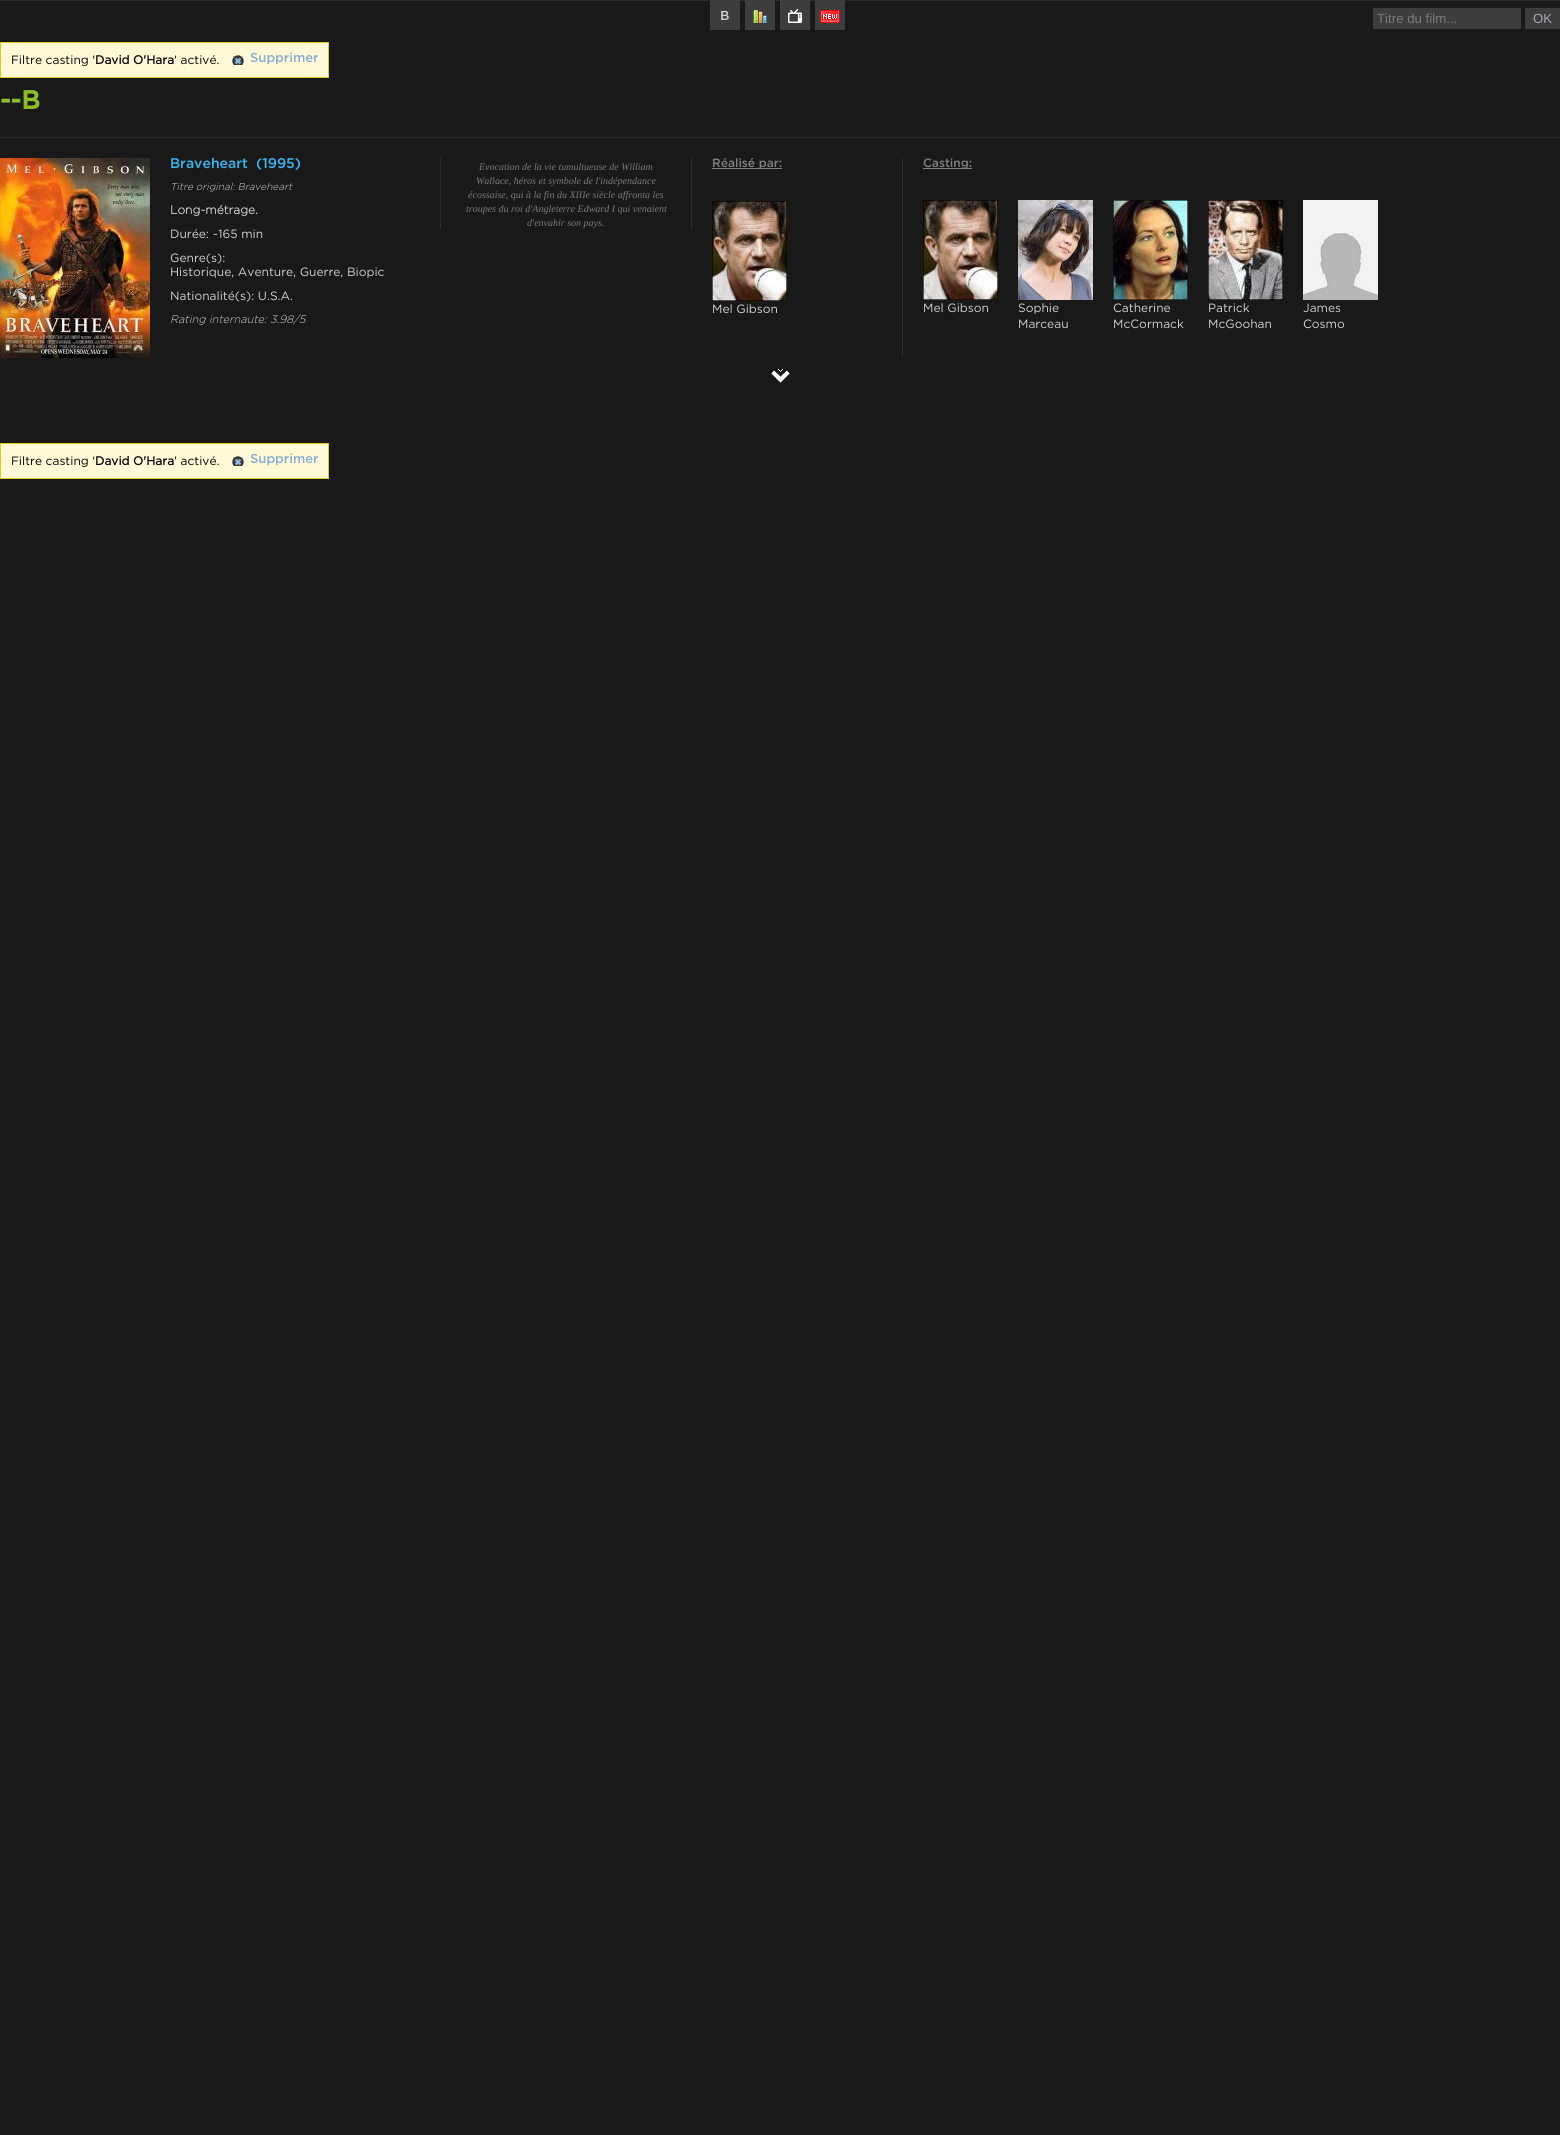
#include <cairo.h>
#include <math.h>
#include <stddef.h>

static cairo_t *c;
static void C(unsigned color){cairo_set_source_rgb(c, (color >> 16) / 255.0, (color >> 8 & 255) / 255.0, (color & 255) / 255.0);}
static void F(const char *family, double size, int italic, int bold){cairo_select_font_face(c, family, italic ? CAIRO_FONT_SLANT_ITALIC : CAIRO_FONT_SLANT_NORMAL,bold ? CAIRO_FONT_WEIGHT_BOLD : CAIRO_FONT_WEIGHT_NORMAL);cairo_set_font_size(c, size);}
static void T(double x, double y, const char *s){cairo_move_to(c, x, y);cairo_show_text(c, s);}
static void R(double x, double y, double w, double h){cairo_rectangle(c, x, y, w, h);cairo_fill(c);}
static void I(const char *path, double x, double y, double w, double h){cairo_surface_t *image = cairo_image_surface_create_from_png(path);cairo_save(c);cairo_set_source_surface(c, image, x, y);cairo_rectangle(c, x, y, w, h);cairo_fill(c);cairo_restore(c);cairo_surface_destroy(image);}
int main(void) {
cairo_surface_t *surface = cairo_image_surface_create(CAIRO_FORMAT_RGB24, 1560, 2135);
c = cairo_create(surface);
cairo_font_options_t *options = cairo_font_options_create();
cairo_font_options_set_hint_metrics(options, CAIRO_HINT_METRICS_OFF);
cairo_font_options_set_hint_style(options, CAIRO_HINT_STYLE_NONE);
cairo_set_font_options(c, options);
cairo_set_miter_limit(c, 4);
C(0x191919);
cairo_paint(c);
cairo_new_path(c);
cairo_move_to(c,0,.5);
cairo_line_to(c,1560,.5);
C(0x3d3d3d);
cairo_set_line_width(c,1);
cairo_set_dash(c,(double[]){1,1},2,0);
cairo_stroke(c);
R(710,0,30,30);
F("Gotham Medium",13,0,0);
C(0xd2d2d2);
T(720,20,"B");
C(0x3d3d3d);
R(745,0,30,30);
I("1.png",753,10,14,14);
R(780,0,30,30);
I("2.png",788,9,14,14);
R(815,0,30,30);
I("3.png",820,10,20,13);
R(1373,8,148,21);
F("Liberation Sans",13.25,0,0);
C(0x7a7a7a);
T(1377,23,"Titre du film...");
C(0x3d3d3d);
R(1525,8,35,21);
C(0xa3aab1);
T(1533,23,"OK");
C(0xfff9d7);
cairo_rectangle(c,.5,42.5,328,35);
cairo_fill_preserve(c);
C(0xe2c822);
cairo_set_dash(c,NULL,0,0);
cairo_stroke(c);
F("Gotham",12,0,0);
C(0x000000);
T(11,64,"Filtre casting '");
F("Gotham",12,0,1);
T(95,64,"David O'Hara");
F("Gotham",12,0,0);
T(174,64,"' activé.");
I("4.png",232,55,13,10);
F("Gotham Medium",13,0,0);
C(0x85aed2);
T(250,62,"Supprimer");
F("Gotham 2",26,0,1);
C(0x8dbe29);
T(0,109,"--B");
cairo_new_path(c);
cairo_move_to(c,0,137.5);
cairo_line_to(c,1560,137.5);
C(0x3d3d3d);
cairo_set_dash(c,(double[]){1,1},2,0);
cairo_stroke(c);
I("5.png",0,158,150,200);
F("Gotham Medium",14,0,0);
C(0x37b6f1);
T(170,168,"Braveheart");
T(256,168,"(1995)");
F("Gotham Light",10,1,0);
C(0xd2d2d2);
T(170,190,"Titre original: Braveheart");
F("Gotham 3",12,0,1);
T(170,214,"Long-métrage.");
F("Gotham",12,0,0);
T(170,238,"Durée: ~165 min");
T(170,262,"Genre(s):");
T(170,276,"Historique, Aventure, Guerre, Biopic");
T(170,300,"Nationalité(s): U.S.A.");
F("Gotham Light",11,1,0);
T(170,323,"Rating internaute: 3.98/5");
cairo_new_path(c);
cairo_move_to(c,691.5,158);
cairo_line_to(c,691.5,230);
C(0x404040);
cairo_stroke(c);
cairo_new_path(c);
cairo_move_to(c,440.5,158);
cairo_line_to(c,440.5,230);
cairo_stroke(c);
F("Liberation Serif",10,1,0);
C(0x7a7a7a);
T(479,170,"Evocation de la vie tumultueuse de William");
T(476,184,"Wallace, héros et symbole de l'indépendance");
T(468,198,"écossaise, qui à la fin du XIIIe siècle affronta les");
T(466,212,"troupes du roi d'Angleterre Edward I qui venaient");
T(527,226,"d'envahir son pays.");
C(0x808080);
R(712,168,70,1);
F("Gotham Medium",12,0,0);
T(712,167,"Réalisé par:");
I("6.png",712,201,75,100);
F("Gotham",12,0,0);
C(0xd2d2d2);
T(712,313,"Mel Gibson");
cairo_save(c);
cairo_rectangle(c,0,158,1400,200);
cairo_clip(c);
cairo_new_path(c);
cairo_move_to(c,902.5,158);
cairo_line_to(c,902.5,675);
C(0x404040);
cairo_stroke(c);
cairo_restore(c);
C(0x808080);
R(923,168,49,1);
F("Gotham Medium",12,0,0);
T(923,167,"Casting:");
I("6.png",923,200,75,100);
F("Gotham",12,0,0);
C(0xd2d2d2);
T(923,312,"Mel Gibson");
I("7.png",1018,200,75,100);
T(1018,312,"Sophie");
T(1018,328,"Marceau");
I("8.png",1113,200,75,100);
T(1113,312,"Catherine");
T(1113,328,"McCormack");
I("9.png",1208,200,75,100);
T(1208,312,"Patrick");
T(1208,328,"McGoohan");
I("10.png",1303,200,75,100);
T(1303,312,"James");
T(1303,328,"Cosmo");
I("11.png",771,369,19,14);
C(0xfff9d7);
cairo_rectangle(c,.5,443.5,328,35);
cairo_fill_preserve(c);
C(0xe2c822);
cairo_set_dash(c,NULL,0,0);
cairo_stroke(c);
C(0x000000);
T(11,465,"Filtre casting '");
F("Gotham",12,0,1);
T(95,465,"David O'Hara");
F("Gotham",12,0,0);
T(174,465,"' activé.");
I("4.png",232,456,13,10);
F("Gotham Medium",13,0,0);
C(0x85aed2);
T(250,463,"Supprimer");
cairo_surface_write_to_png(surface, "o.png");
cairo_font_options_destroy(options);
cairo_destroy(c);
cairo_surface_destroy(surface);
return 0;
}
